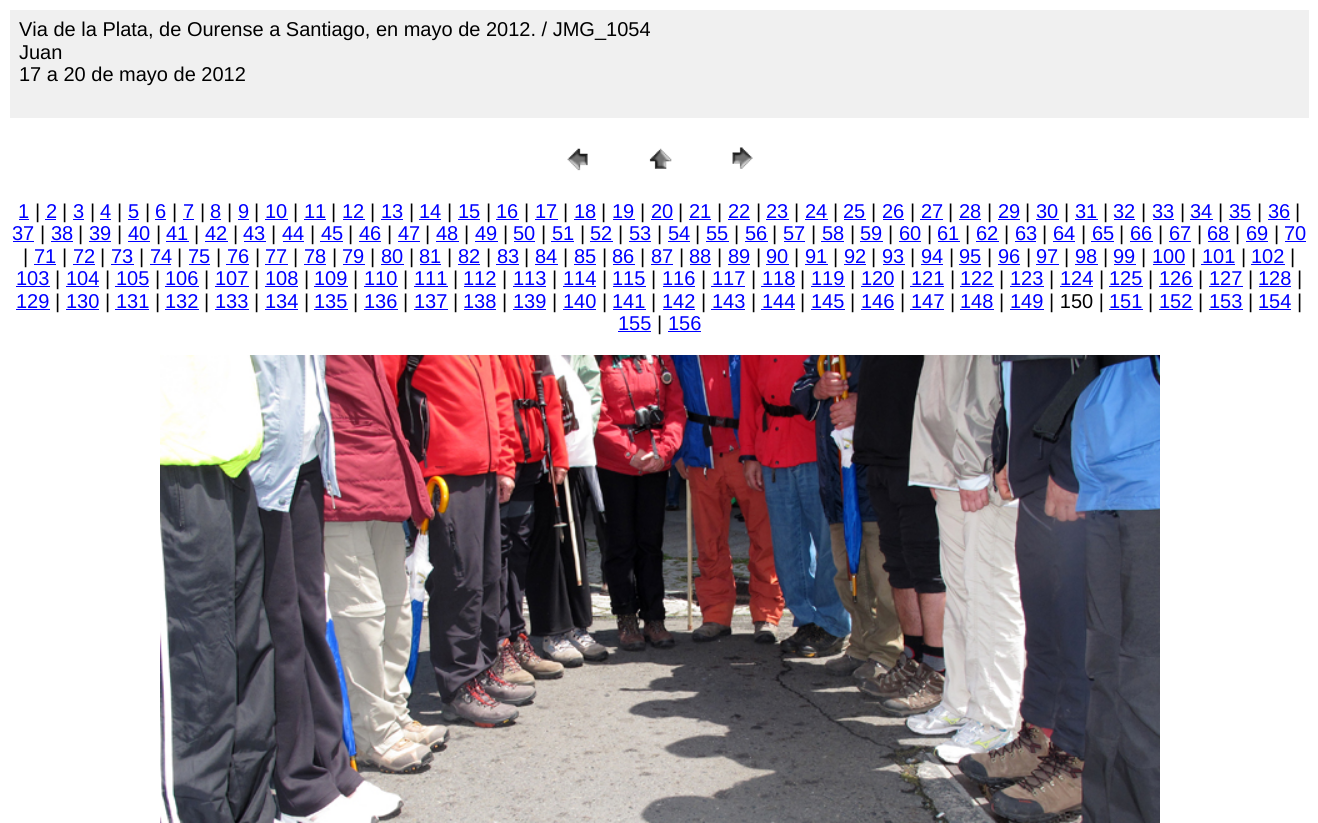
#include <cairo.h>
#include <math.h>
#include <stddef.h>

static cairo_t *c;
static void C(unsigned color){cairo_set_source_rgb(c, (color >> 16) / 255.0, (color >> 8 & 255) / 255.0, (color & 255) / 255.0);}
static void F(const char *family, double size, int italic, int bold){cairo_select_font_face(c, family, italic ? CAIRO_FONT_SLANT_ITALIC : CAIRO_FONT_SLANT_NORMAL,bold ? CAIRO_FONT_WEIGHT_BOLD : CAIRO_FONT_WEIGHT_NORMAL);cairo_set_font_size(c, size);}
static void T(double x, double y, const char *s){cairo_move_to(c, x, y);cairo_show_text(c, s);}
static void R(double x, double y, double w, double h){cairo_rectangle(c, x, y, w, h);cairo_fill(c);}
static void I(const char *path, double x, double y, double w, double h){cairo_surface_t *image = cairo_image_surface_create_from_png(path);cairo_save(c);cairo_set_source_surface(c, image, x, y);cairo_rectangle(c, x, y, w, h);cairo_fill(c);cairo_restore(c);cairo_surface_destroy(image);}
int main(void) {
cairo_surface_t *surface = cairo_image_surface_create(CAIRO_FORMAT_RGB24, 1318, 823);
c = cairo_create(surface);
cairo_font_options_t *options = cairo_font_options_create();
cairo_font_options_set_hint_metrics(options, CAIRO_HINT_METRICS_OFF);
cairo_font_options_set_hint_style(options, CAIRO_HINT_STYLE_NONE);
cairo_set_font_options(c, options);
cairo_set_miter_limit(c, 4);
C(0xffffff);
cairo_paint(c);
C(0xf0f0f0);
R(10,10,1299,108);
F("Liberation Sans",20,0,0);
C(0x000000);
T(19,36,"Via de la Plata, de Ourense a Santiago, en mayo de 2012. / JMG_1054");
T(19,59,"Juan");
T(19,81,"17 a 20 de mayo de 2012");
I("1.png",567,148,21,23);
I("2.png",649,148,23,21);
I("3.png",732,147,21,22);
C(0x0000ff);
T(18,218,"1");
R(19,219,10,1);
C(0x000000);
T(35,218,"|");
C(0x0000ff);
T(46,218,"2");
R(45,219,11,1);
C(0x000000);
T(62,218,"|");
C(0x0000ff);
T(73,218,"3");
R(73,219,11,1);
C(0x000000);
T(90,218,"|");
C(0x0000ff);
T(100,218,"4");
R(100,219,11,1);
C(0x000000);
T(117,218,"|");
C(0x0000ff);
T(128,218,"5");
R(128,219,11,1);
C(0x000000);
T(145,218,"|");
C(0x0000ff);
T(155,218,"6");
R(155,219,11,1);
C(0x000000);
T(172,218,"|");
C(0x0000ff);
T(183,218,"7");
R(183,219,11,1);
C(0x000000);
T(200,218,"|");
C(0x0000ff);
T(210,218,"8");
R(210,219,11,1);
C(0x000000);
T(227,218,"|");
C(0x0000ff);
T(238,218,"9");
R(238,219,11,1);
C(0x000000);
T(254,218,"|");
C(0x0000ff);
T(265,218,"10");
R(265,219,23,1);
C(0x000000);
T(293,218,"|");
C(0x0000ff);
T(304,218,"11");
R(304,219,22,1);
C(0x000000);
T(331,218,"|");
C(0x0000ff);
T(342,218,"12");
R(343,219,22,1);
C(0x000000);
T(370,218,"|");
C(0x0000ff);
T(381,218,"13");
R(381,219,22,1);
C(0x000000);
T(409,218,"|");
C(0x0000ff);
T(419,218,"14");
R(419,219,22,1);
C(0x000000);
T(447,218,"|");
C(0x0000ff);
T(458,218,"15");
R(458,219,22,1);
C(0x000000);
T(486,218,"|");
C(0x0000ff);
T(496,218,"16");
R(496,219,23,1);
C(0x000000);
T(524,218,"|");
C(0x0000ff);
T(535,218,"17");
R(535,219,23,1);
C(0x000000);
T(563,218,"|");
C(0x0000ff);
T(574,218,"18");
R(574,219,22,1);
C(0x000000);
T(601,218,"|");
C(0x0000ff);
T(612,218,"19");
R(613,219,22,1);
C(0x000000);
T(640,218,"|");
C(0x0000ff);
T(651,218,"20");
R(651,219,22,1);
C(0x000000);
T(678,218,"|");
C(0x0000ff);
T(689,218,"21");
R(689,219,22,1);
C(0x000000);
T(717,218,"|");
C(0x0000ff);
T(728,218,"22");
R(728,219,22,1);
C(0x000000);
T(756,218,"|");
C(0x0000ff);
T(766,218,"23");
R(766,219,23,1);
C(0x000000);
T(794,218,"|");
C(0x0000ff);
T(805,218,"24");
R(805,219,23,1);
C(0x000000);
T(833,218,"|");
C(0x0000ff);
T(843,218,"25");
R(844,219,22,1);
C(0x000000);
T(871,218,"|");
C(0x0000ff);
T(882,218,"26");
R(883,219,21,1);
C(0x000000);
T(910,218,"|");
C(0x0000ff);
T(921,218,"27");
R(920,219,23,1);
C(0x000000);
T(948,218,"|");
C(0x0000ff);
T(959,218,"28");
R(959,219,22,1);
C(0x000000);
T(987,218,"|");
C(0x0000ff);
T(998,218,"29");
R(998,219,22,1);
C(0x000000);
T(1025,218,"|");
C(0x0000ff);
T(1036,218,"30");
R(1036,219,23,1);
C(0x000000);
T(1064,218,"|");
C(0x0000ff);
T(1075,218,"31");
R(1075,219,23,1);
C(0x000000);
T(1103,218,"|");
C(0x0000ff);
T(1113,218,"32");
R(1114,219,21,1);
C(0x000000);
T(1141,218,"|");
C(0x0000ff);
T(1152,218,"33");
R(1153,219,21,1);
C(0x000000);
T(1180,218,"|");
C(0x0000ff);
T(1190,218,"34");
R(1190,219,23,1);
C(0x000000);
T(1218,218,"|");
C(0x0000ff);
T(1229,218,"35");
R(1229,219,22,1);
C(0x000000);
T(1257,218,"|");
C(0x0000ff);
T(1268,218,"36");
R(1268,219,22,1);
C(0x000000);
T(1295,218,"|");
C(0x0000ff);
T(12,240,"37");
R(13,241,21,1);
C(0x000000);
T(40,240,"|");
C(0x0000ff);
T(51,240,"38");
R(51,241,22,1);
C(0x000000);
T(78,240,"|");
C(0x0000ff);
T(89,240,"39");
R(89,241,22,1);
C(0x000000);
T(117,240,"|");
C(0x0000ff);
T(128,240,"40");
R(128,241,22,1);
C(0x000000);
T(156,240,"|");
C(0x0000ff);
T(166,240,"41");
R(166,241,23,1);
C(0x000000);
T(194,240,"|");
C(0x0000ff);
T(205,240,"42");
R(205,241,23,1);
C(0x000000);
T(233,240,"|");
C(0x0000ff);
T(243,240,"43");
R(244,241,22,1);
C(0x000000);
T(271,240,"|");
C(0x0000ff);
T(282,240,"44");
R(283,241,21,1);
C(0x000000);
T(310,240,"|");
C(0x0000ff);
T(321,240,"45");
R(320,241,23,1);
C(0x000000);
T(348,240,"|");
C(0x0000ff);
T(359,240,"46");
R(359,241,22,1);
C(0x000000);
T(387,240,"|");
C(0x0000ff);
T(398,240,"47");
R(398,241,22,1);
C(0x000000);
T(425,240,"|");
C(0x0000ff);
T(436,240,"48");
R(436,241,23,1);
C(0x000000);
T(464,240,"|");
C(0x0000ff);
T(475,240,"49");
R(475,241,23,1);
C(0x000000);
T(503,240,"|");
C(0x0000ff);
T(513,240,"50");
R(514,241,21,1);
C(0x000000);
T(541,240,"|");
C(0x0000ff);
T(552,240,"51");
R(551,241,23,1);
C(0x000000);
T(580,240,"|");
C(0x0000ff);
T(590,240,"52");
R(590,241,23,1);
C(0x000000);
T(618,240,"|");
C(0x0000ff);
T(629,240,"53");
R(629,241,22,1);
C(0x000000);
T(657,240,"|");
C(0x0000ff);
T(668,240,"54");
R(668,241,22,1);
C(0x000000);
T(695,240,"|");
C(0x0000ff);
T(706,240,"55");
R(706,241,23,1);
C(0x000000);
T(734,240,"|");
C(0x0000ff);
T(745,240,"56");
R(745,241,23,1);
C(0x000000);
T(772,240,"|");
C(0x0000ff);
T(783,240,"57");
R(784,241,21,1);
C(0x000000);
T(811,240,"|");
C(0x0000ff);
T(822,240,"58");
R(821,241,23,1);
C(0x000000);
T(850,240,"|");
C(0x0000ff);
T(860,240,"59");
R(860,241,23,1);
C(0x000000);
T(888,240,"|");
C(0x0000ff);
T(899,240,"60");
R(899,241,22,1);
C(0x000000);
T(927,240,"|");
C(0x0000ff);
T(937,240,"61");
R(938,241,22,1);
C(0x000000);
T(965,240,"|");
C(0x0000ff);
T(976,240,"62");
R(976,241,23,1);
C(0x000000);
T(1004,240,"|");
C(0x0000ff);
T(1015,240,"63");
R(1015,241,21,1);
C(0x000000);
T(1042,240,"|");
C(0x0000ff);
T(1053,240,"64");
R(1053,241,22,1);
C(0x000000);
T(1081,240,"|");
C(0x0000ff);
T(1092,240,"65");
R(1091,241,23,1);
C(0x000000);
T(1119,240,"|");
C(0x0000ff);
T(1130,240,"66");
R(1130,241,23,1);
C(0x000000);
T(1158,240,"|");
C(0x0000ff);
T(1169,240,"67");
R(1169,241,22,1);
C(0x000000);
T(1197,240,"|");
C(0x0000ff);
T(1207,240,"68");
R(1208,241,22,1);
C(0x000000);
T(1235,240,"|");
C(0x0000ff);
T(1246,240,"69");
R(1246,241,22,1);
C(0x000000);
T(1274,240,"|");
C(0x0000ff);
T(1284,240,"70");
R(1285,241,21,1);
C(0x000000);
T(23,263,"|");
C(0x0000ff);
T(34,263,"71");
R(34,264,22,1);
C(0x000000);
T(62,263,"|");
C(0x0000ff);
T(73,263,"72");
R(73,264,22,1);
C(0x000000);
T(100,263,"|");
C(0x0000ff);
T(111,263,"73");
R(111,264,23,1);
C(0x000000);
T(139,263,"|");
C(0x0000ff);
T(150,263,"74");
R(150,264,21,1);
C(0x000000);
T(177,263,"|");
C(0x0000ff);
T(188,263,"75");
R(189,264,21,1);
C(0x000000);
T(216,263,"|");
C(0x0000ff);
T(227,263,"76");
R(226,264,23,1);
C(0x000000);
T(255,263,"|");
C(0x0000ff);
T(265,263,"77");
R(265,264,23,1);
C(0x000000);
T(293,263,"|");
C(0x0000ff);
T(304,263,"78");
R(304,264,22,1);
C(0x000000);
T(332,263,"|");
C(0x0000ff);
T(342,263,"79");
R(343,264,22,1);
C(0x000000);
T(370,263,"|");
C(0x0000ff);
T(381,263,"80");
R(381,264,23,1);
C(0x000000);
T(409,263,"|");
C(0x0000ff);
T(419,263,"81");
R(420,264,21,1);
C(0x000000);
T(447,263,"|");
C(0x0000ff);
T(458,263,"82");
R(458,264,22,1);
C(0x000000);
T(486,263,"|");
C(0x0000ff);
T(497,263,"83");
R(496,264,23,1);
C(0x000000);
T(524,263,"|");
C(0x0000ff);
T(535,263,"84");
R(535,264,23,1);
C(0x000000);
T(563,263,"|");
C(0x0000ff);
T(574,263,"85");
R(574,264,22,1);
C(0x000000);
T(602,263,"|");
C(0x0000ff);
T(612,263,"86");
R(613,264,22,1);
C(0x000000);
T(640,263,"|");
C(0x0000ff);
T(651,263,"87");
R(651,264,22,1);
C(0x000000);
T(679,263,"|");
C(0x0000ff);
T(689,263,"88");
R(690,264,21,1);
C(0x000000);
T(717,263,"|");
C(0x0000ff);
T(728,263,"89");
R(728,264,22,1);
C(0x000000);
T(756,263,"|");
C(0x0000ff);
T(766,263,"90");
R(766,264,23,1);
C(0x000000);
T(794,263,"|");
C(0x0000ff);
T(805,263,"91");
R(805,264,23,1);
C(0x000000);
T(833,263,"|");
C(0x0000ff);
T(844,263,"92");
R(844,264,22,1);
C(0x000000);
T(871,263,"|");
C(0x0000ff);
T(882,263,"93");
R(883,264,22,1);
C(0x000000);
T(910,263,"|");
C(0x0000ff);
T(921,263,"94");
R(921,264,22,1);
C(0x000000);
T(949,263,"|");
C(0x0000ff);
T(959,263,"95");
R(959,264,22,1);
C(0x000000);
T(987,263,"|");
C(0x0000ff);
T(998,263,"96");
R(998,264,22,1);
C(0x000000);
T(1026,263,"|");
C(0x0000ff);
T(1036,263,"97");
R(1036,264,23,1);
C(0x000000);
T(1064,263,"|");
C(0x0000ff);
T(1075,263,"98");
R(1075,264,23,1);
C(0x000000);
T(1103,263,"|");
C(0x0000ff);
T(1113,263,"99");
R(1114,264,22,1);
C(0x000000);
T(1141,263,"|");
C(0x0000ff);
T(1152,263,"100");
R(1153,264,32,1);
C(0x000000);
T(1191,263,"|");
C(0x0000ff);
T(1202,263,"101");
R(1201,264,34,1);
C(0x000000);
T(1241,263,"|");
C(0x0000ff);
T(1251,263,"102");
R(1251,264,34,1);
C(0x000000);
T(1290,263,"|");
C(0x0000ff);
T(16,285,"103");
R(16,286,34,1);
C(0x000000);
T(55,285,"|");
C(0x0000ff);
T(66,285,"104");
R(66,286,33,1);
C(0x000000);
T(105,285,"|");
C(0x0000ff);
T(116,285,"105");
R(115,286,34,1);
C(0x000000);
T(155,285,"|");
C(0x0000ff);
T(165,285,"106");
R(165,286,34,1);
C(0x000000);
T(204,285,"|");
C(0x0000ff);
T(215,285,"107");
R(215,286,34,1);
C(0x000000);
T(254,285,"|");
C(0x0000ff);
T(265,285,"108");
R(265,286,33,1);
C(0x000000);
T(304,285,"|");
C(0x0000ff);
T(314,285,"109");
R(314,286,34,1);
C(0x000000);
T(353,285,"|");
C(0x0000ff);
T(364,285,"110");
R(364,286,34,1);
C(0x000000);
T(403,285,"|");
C(0x0000ff);
T(414,285,"111");
R(414,286,34,1);
C(0x000000);
T(453,285,"|");
C(0x0000ff);
T(463,285,"112");
R(464,286,32,1);
C(0x000000);
T(502,285,"|");
C(0x0000ff);
T(513,285,"113");
R(513,286,33,1);
C(0x000000);
T(552,285,"|");
C(0x0000ff);
T(563,285,"114");
R(563,286,33,1);
C(0x000000);
T(602,285,"|");
C(0x0000ff);
T(612,285,"115");
R(613,286,33,1);
C(0x000000);
T(651,285,"|");
C(0x0000ff);
T(662,285,"116");
R(663,286,32,1);
C(0x000000);
T(701,285,"|");
C(0x0000ff);
T(712,285,"117");
R(711,286,34,1);
C(0x000000);
T(751,285,"|");
C(0x0000ff);
T(762,285,"118");
R(761,286,34,1);
C(0x000000);
T(800,285,"|");
C(0x0000ff);
T(811,285,"119");
R(811,286,34,1);
C(0x000000);
T(850,285,"|");
C(0x0000ff);
T(861,285,"120");
R(861,286,33,1);
C(0x000000);
T(900,285,"|");
C(0x0000ff);
T(911,285,"121");
R(910,286,34,1);
C(0x000000);
T(950,285,"|");
C(0x0000ff);
T(960,285,"122");
R(960,286,34,1);
C(0x000000);
T(999,285,"|");
C(0x0000ff);
T(1010,285,"123");
R(1010,286,34,1);
C(0x000000);
T(1049,285,"|");
C(0x0000ff);
T(1060,285,"124");
R(1060,286,33,1);
C(0x000000);
T(1099,285,"|");
C(0x0000ff);
T(1109,285,"125");
R(1109,286,34,1);
C(0x000000);
T(1148,285,"|");
C(0x0000ff);
T(1159,285,"126");
R(1159,286,34,1);
C(0x000000);
T(1198,285,"|");
C(0x0000ff);
T(1209,285,"127");
R(1209,286,34,1);
C(0x000000);
T(1248,285,"|");
C(0x0000ff);
T(1258,285,"128");
R(1259,286,32,1);
C(0x000000);
T(1297,285,"|");
C(0x0000ff);
T(16,308,"129");
R(16,309,34,1);
C(0x000000);
T(55,308,"|");
C(0x0000ff);
T(66,308,"130");
R(66,309,33,1);
C(0x000000);
T(105,308,"|");
C(0x0000ff);
T(116,308,"131");
R(115,309,34,1);
C(0x000000);
T(155,308,"|");
C(0x0000ff);
T(165,308,"132");
R(165,309,34,1);
C(0x000000);
T(204,308,"|");
C(0x0000ff);
T(215,308,"133");
R(215,309,34,1);
C(0x000000);
T(254,308,"|");
C(0x0000ff);
T(265,308,"134");
R(265,309,33,1);
C(0x000000);
T(304,308,"|");
C(0x0000ff);
T(314,308,"135");
R(314,309,34,1);
C(0x000000);
T(353,308,"|");
C(0x0000ff);
T(364,308,"136");
R(364,309,34,1);
C(0x000000);
T(403,308,"|");
C(0x0000ff);
T(414,308,"137");
R(414,309,34,1);
C(0x000000);
T(453,308,"|");
C(0x0000ff);
T(463,308,"138");
R(464,309,32,1);
C(0x000000);
T(502,308,"|");
C(0x0000ff);
T(513,308,"139");
R(513,309,33,1);
C(0x000000);
T(552,308,"|");
C(0x0000ff);
T(563,308,"140");
R(563,309,33,1);
C(0x000000);
T(602,308,"|");
C(0x0000ff);
T(612,308,"141");
R(613,309,33,1);
C(0x000000);
T(651,308,"|");
C(0x0000ff);
T(662,308,"142");
R(663,309,32,1);
C(0x000000);
T(701,308,"|");
C(0x0000ff);
T(712,308,"143");
R(711,309,34,1);
C(0x000000);
T(751,308,"|");
C(0x0000ff);
T(762,308,"144");
R(761,309,34,1);
C(0x000000);
T(800,308,"|");
C(0x0000ff);
T(811,308,"145");
R(811,309,34,1);
C(0x000000);
T(850,308,"|");
C(0x0000ff);
T(861,308,"146");
R(861,309,33,1);
C(0x000000);
T(900,308,"|");
C(0x0000ff);
T(911,308,"147");
R(910,309,34,1);
C(0x000000);
T(950,308,"|");
C(0x0000ff);
T(960,308,"148");
R(960,309,34,1);
C(0x000000);
T(999,308,"|");
C(0x0000ff);
T(1010,308,"149");
R(1010,309,34,1);
C(0x000000);
T(1049,308,"| 150 |");
C(0x0000ff);
T(1109,308,"151");
R(1109,309,34,1);
C(0x000000);
T(1148,308,"|");
C(0x0000ff);
T(1159,308,"152");
R(1159,309,34,1);
C(0x000000);
T(1198,308,"|");
C(0x0000ff);
T(1209,308,"153");
R(1209,309,34,1);
C(0x000000);
T(1248,308,"|");
C(0x0000ff);
T(1258,308,"154");
R(1259,309,32,1);
C(0x000000);
T(1297,308,"|");
C(0x0000ff);
T(618,330,"155");
R(618,331,33,1);
C(0x000000);
T(657,330,"|");
C(0x0000ff);
T(668,330,"156");
R(668,331,33,1);
I("4.png",160,355,1000,468);
cairo_surface_write_to_png(surface, "o.png");
cairo_font_options_destroy(options);
cairo_destroy(c);
cairo_surface_destroy(surface);
return 0;
}
